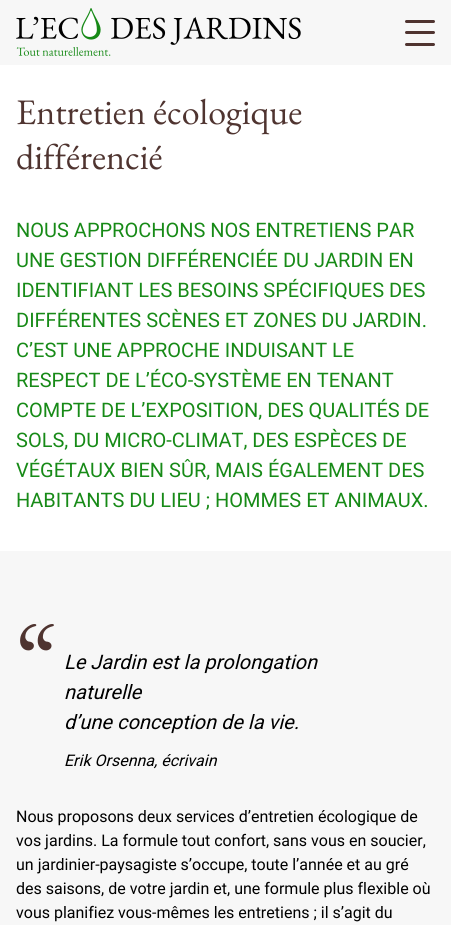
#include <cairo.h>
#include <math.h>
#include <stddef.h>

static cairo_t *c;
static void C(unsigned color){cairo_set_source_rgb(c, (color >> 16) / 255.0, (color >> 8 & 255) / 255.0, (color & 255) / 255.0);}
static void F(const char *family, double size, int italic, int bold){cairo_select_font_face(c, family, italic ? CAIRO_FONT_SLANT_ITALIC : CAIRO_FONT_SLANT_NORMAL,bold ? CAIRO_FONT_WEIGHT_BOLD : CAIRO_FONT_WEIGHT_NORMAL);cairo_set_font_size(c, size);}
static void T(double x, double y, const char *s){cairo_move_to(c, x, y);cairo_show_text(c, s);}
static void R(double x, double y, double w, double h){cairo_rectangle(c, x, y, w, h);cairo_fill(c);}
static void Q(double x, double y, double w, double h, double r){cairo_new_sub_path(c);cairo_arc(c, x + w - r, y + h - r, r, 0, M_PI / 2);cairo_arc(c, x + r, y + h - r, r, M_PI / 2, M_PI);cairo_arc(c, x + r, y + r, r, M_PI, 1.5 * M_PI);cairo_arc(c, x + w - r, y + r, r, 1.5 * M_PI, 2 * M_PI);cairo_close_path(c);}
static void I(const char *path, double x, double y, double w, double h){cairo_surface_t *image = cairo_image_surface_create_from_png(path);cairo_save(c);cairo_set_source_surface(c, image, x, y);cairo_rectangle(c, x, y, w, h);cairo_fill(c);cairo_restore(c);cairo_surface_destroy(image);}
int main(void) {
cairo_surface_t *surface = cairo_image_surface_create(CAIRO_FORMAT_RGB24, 451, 925);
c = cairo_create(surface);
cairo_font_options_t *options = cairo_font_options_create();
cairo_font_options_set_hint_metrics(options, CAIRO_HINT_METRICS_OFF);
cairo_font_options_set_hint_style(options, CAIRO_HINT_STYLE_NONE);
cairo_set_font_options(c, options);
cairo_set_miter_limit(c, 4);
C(0xf7f7f7);
cairo_paint(c);
I("1.png",16,8,285,48);
C(0x4f3430);
Q(405,20,30,3,1.5);
cairo_fill(c);
Q(405,31,30,3,1.5);
cairo_fill(c);
Q(405,43,30,3,1.5);
cairo_fill(c);
C(0xffffff);
R(0,65,451,486);
F("EB Garamond",36,0,0);
C(0x4f3430);
T(16,124,"Entretien écologique");
T(16,169,"différencié");
F("Roboto",20,0,0);
C(0x178a17);
T(16,237,"NOUS APPROCHONS NOS ENTRETIENS PAR");
T(16,267,"UNE GESTION DIFFÉRENCIÉE DU JARDIN EN");
T(16,297,"IDENTIFIANT LES BESOINS SPÉCIFIQUES DES");
T(16,327,"DIFFÉRENTES SCÈNES ET ZONES DU JARDIN.");
T(16,357,"C’EST UNE APPROCHE INDUISANT LE");
T(16,387,"RESPECT DE L’ÉCO-SYSTÈME EN TENANT");
T(16,417,"COMPTE DE L’EXPOSITION, DES QUALITÉS DE");
T(16,447,"SOLS, DU MICRO-CLIMAT, DES ESPÈCES DE");
T(16,477,"VÉGÉTAUX BIEN SÛR, MAIS ÉGALEMENT DES");
T(16,507,"HABITANTS DU LIEU ; HOMMES ET ANIMAUX.");
F("EB Garamond",100,0,0);
C(0x4f3430);
T(16,693,"“");
F("Roboto",20,1,0);
C(0x000000);
T(64,669,"Le Jardin est la prolongation");
T(64,699,"naturelle");
T(64,729,"d’une conception de la vie.");
F("Roboto",16,1,0);
T(64,766,"Erik Orsenna, écrivain");
F("Roboto",16,0,0);
T(16,822,"Nous proposons deux services d’entretien écologique de");
T(16,846,"vos jardins. La formule tout confort, sans vous en soucier,");
T(16,870,"un jardinier-paysagiste s’occupe, toute l’année et au gré");
T(16,894,"des saisons, de votre jardin et, une formule plus flexible où");
T(16,918,"vous planifiez vous-mêmes les entretiens ; il s’agit du");
cairo_surface_write_to_png(surface, "o.png");
cairo_font_options_destroy(options);
cairo_destroy(c);
cairo_surface_destroy(surface);
return 0;
}
